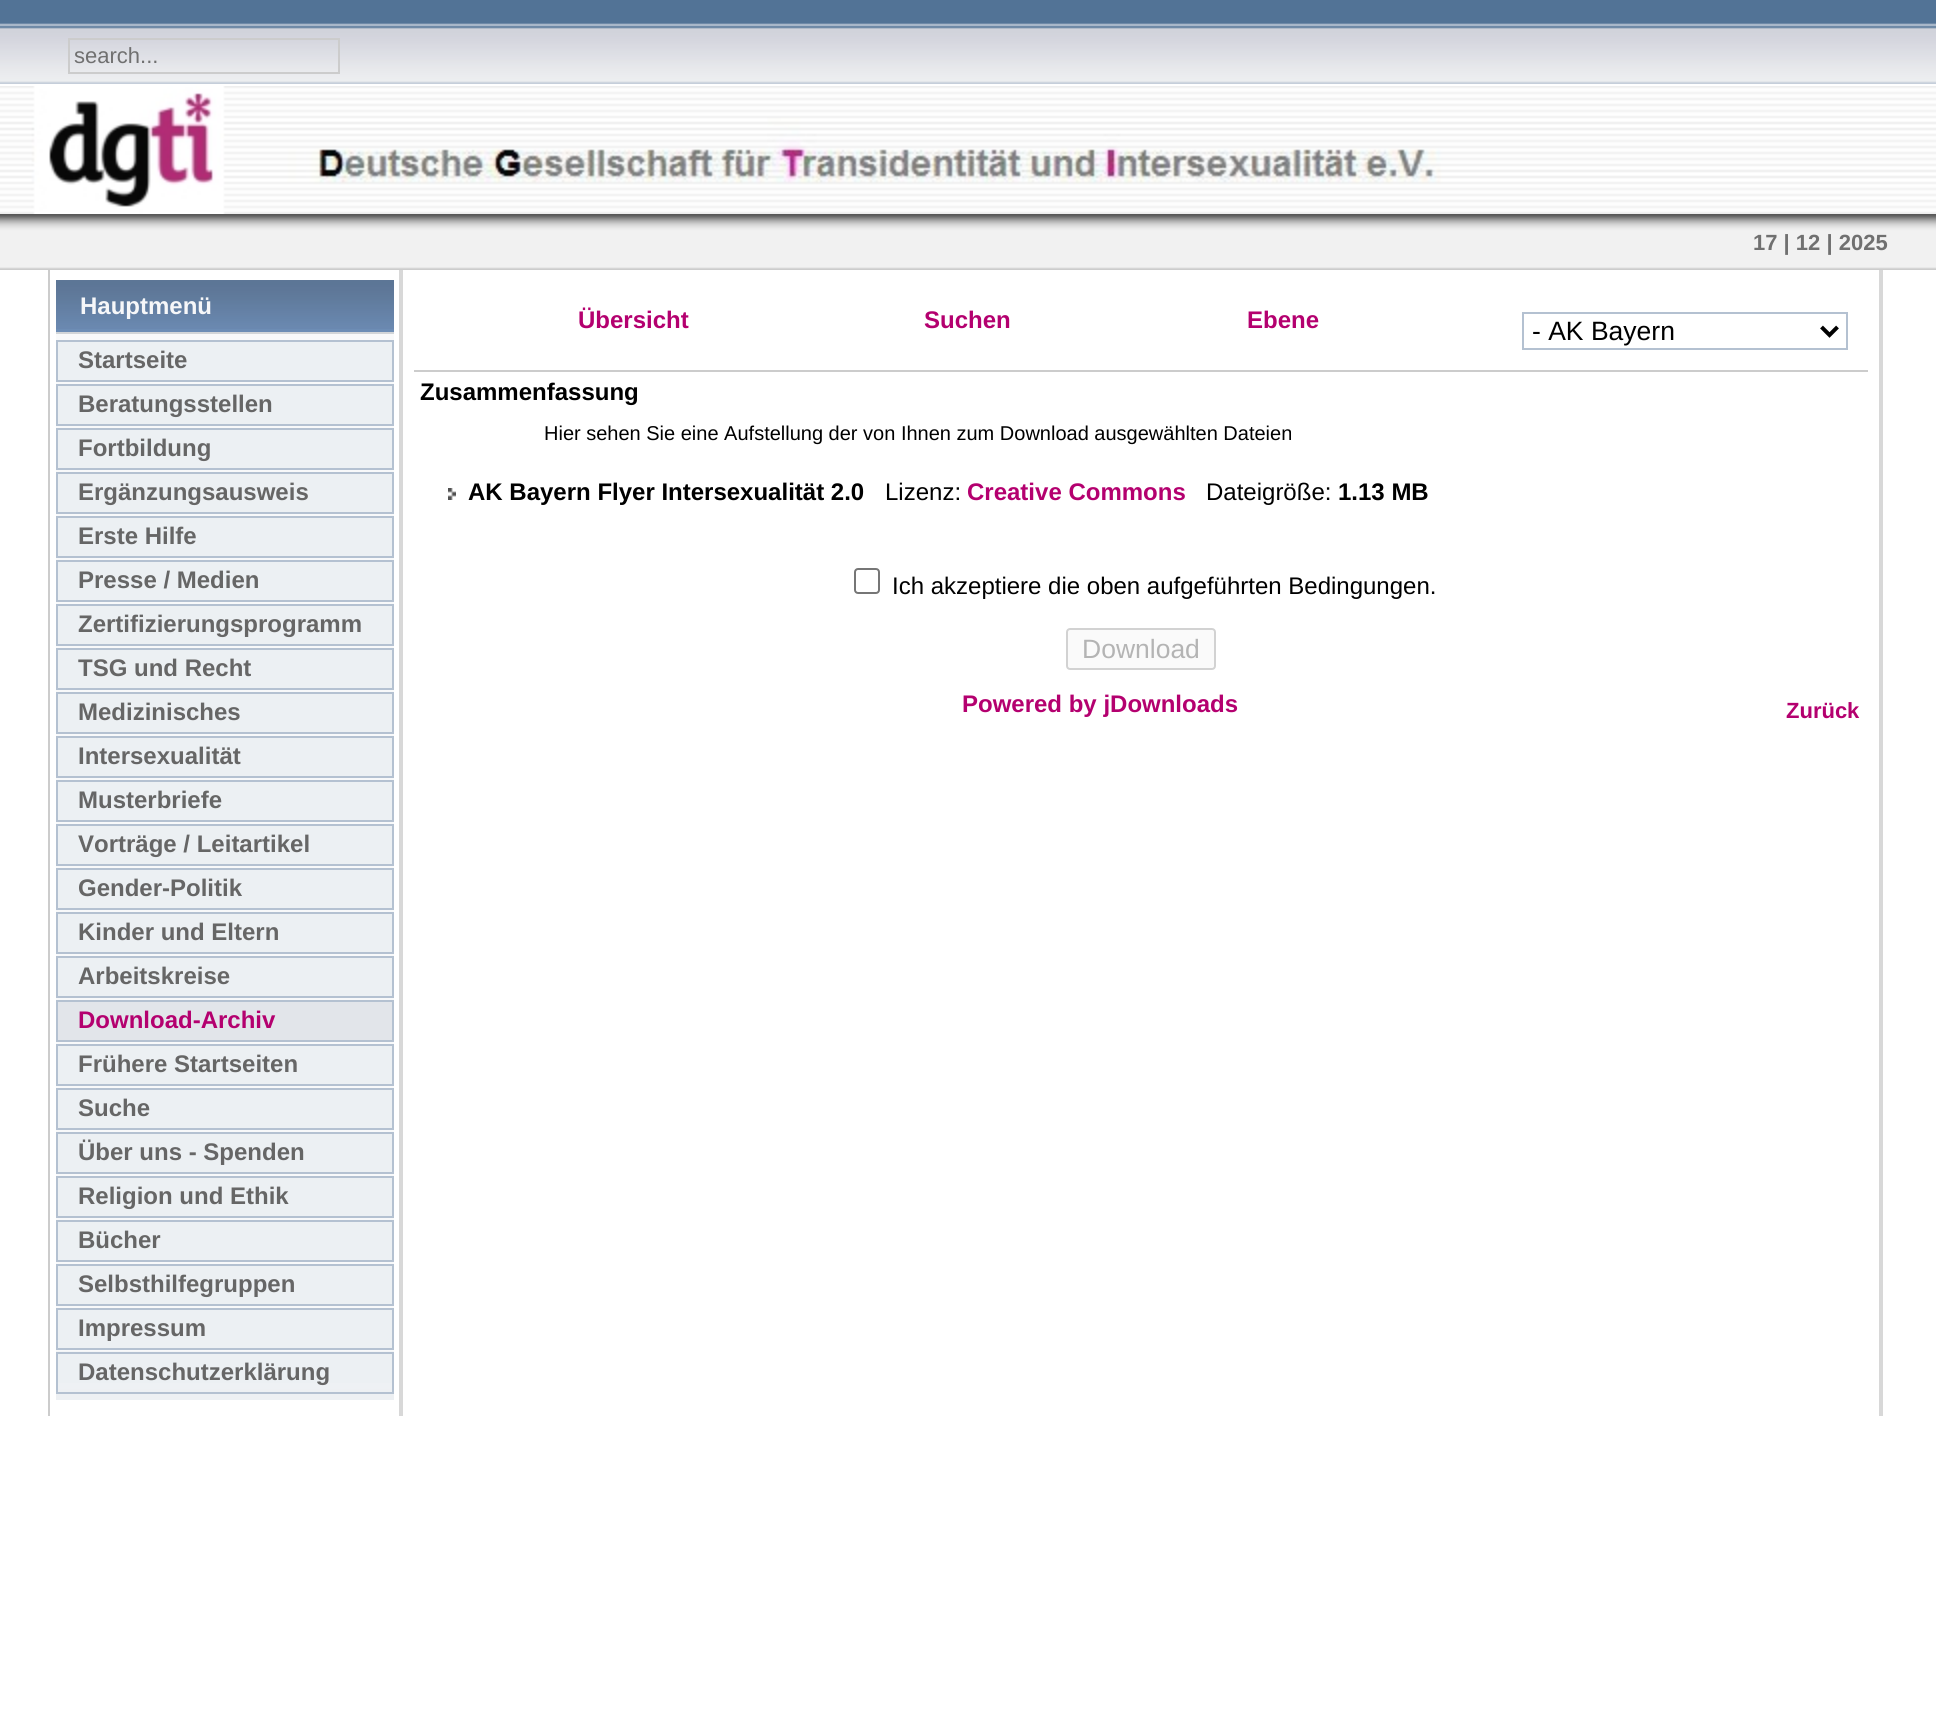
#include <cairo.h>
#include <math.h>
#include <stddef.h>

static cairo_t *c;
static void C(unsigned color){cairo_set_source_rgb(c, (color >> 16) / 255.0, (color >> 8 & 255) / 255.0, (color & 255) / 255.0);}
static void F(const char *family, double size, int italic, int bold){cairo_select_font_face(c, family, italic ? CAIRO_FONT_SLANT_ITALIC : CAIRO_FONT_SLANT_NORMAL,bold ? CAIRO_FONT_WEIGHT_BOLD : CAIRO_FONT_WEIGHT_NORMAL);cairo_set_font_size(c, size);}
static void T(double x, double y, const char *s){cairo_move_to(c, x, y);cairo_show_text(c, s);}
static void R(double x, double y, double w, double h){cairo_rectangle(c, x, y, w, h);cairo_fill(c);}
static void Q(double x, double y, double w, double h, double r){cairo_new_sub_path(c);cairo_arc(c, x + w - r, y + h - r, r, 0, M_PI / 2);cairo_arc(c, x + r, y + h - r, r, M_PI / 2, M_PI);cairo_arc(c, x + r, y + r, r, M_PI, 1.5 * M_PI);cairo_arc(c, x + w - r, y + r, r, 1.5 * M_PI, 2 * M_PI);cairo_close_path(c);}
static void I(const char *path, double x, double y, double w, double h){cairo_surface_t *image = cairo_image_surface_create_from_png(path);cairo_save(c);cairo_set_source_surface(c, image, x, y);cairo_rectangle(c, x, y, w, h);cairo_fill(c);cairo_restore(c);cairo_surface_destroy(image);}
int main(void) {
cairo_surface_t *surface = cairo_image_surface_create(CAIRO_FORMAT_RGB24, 1936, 1713);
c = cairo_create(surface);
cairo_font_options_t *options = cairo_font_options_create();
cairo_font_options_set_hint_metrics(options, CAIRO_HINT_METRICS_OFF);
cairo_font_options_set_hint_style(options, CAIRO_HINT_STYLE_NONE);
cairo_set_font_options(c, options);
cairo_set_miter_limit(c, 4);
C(0xffffff);
cairo_paint(c);
I("1.png",0,0,1936,84);
cairo_rectangle(c,69,39,270,34);
C(0xcccccc);
cairo_stroke(c);
F("Liberation Sans",22,0,0);
C(0x707070);
T(74,63,"search...");
I("2.png",0,86,1936,128);
I("3.png",0,214,1936,56);
F("Liberation Sans",22,0,1);
T(1753,250,"17 | 12 | 2025");
C(0xcccccc);
R(48,270,2,1146);
C(0xf8f9fa);
R(56,334,338,1017);
I("4.png",56,1351,338,49);
C(0x6d8db5);
R(56,329,338,3);
I("5.png",56,280,338,49);
C(0xd2d5d8);
R(56,332,338,2);
F("Liberation Sans",24,0,1);
C(0xf6f7f9);
T(80,314,"Hauptmenü");
C(0xecf0f3);
cairo_rectangle(c,57,341,336,40);
cairo_fill_preserve(c);
C(0xb4c1d1);
cairo_stroke(c);
C(0x666666);
T(78,368,"Startseite");
C(0xecf0f3);
cairo_rectangle(c,57,385,336,40);
cairo_fill_preserve(c);
C(0xb4c1d1);
cairo_stroke(c);
C(0x666666);
T(78,412,"Beratungsstellen");
C(0xecf0f3);
cairo_rectangle(c,57,429,336,40);
cairo_fill_preserve(c);
C(0xb4c1d1);
cairo_stroke(c);
C(0x666666);
T(78,456,"Fortbildung");
C(0xecf0f3);
cairo_rectangle(c,57,473,336,40);
cairo_fill_preserve(c);
C(0xb4c1d1);
cairo_stroke(c);
C(0x666666);
T(78,500,"Ergänzungsausweis");
C(0xecf0f3);
cairo_rectangle(c,57,517,336,40);
cairo_fill_preserve(c);
C(0xb4c1d1);
cairo_stroke(c);
C(0x666666);
T(78,544,"Erste Hilfe");
C(0xecf0f3);
cairo_rectangle(c,57,561,336,40);
cairo_fill_preserve(c);
C(0xb4c1d1);
cairo_stroke(c);
C(0x666666);
T(78,588,"Presse / Medien");
C(0xecf0f3);
cairo_rectangle(c,57,605,336,40);
cairo_fill_preserve(c);
C(0xb4c1d1);
cairo_stroke(c);
C(0x666666);
T(78,632,"Zertifizierungsprogramm");
C(0xecf0f3);
cairo_rectangle(c,57,649,336,40);
cairo_fill_preserve(c);
C(0xb4c1d1);
cairo_stroke(c);
C(0x666666);
T(78,676,"TSG und Recht");
C(0xecf0f3);
cairo_rectangle(c,57,693,336,40);
cairo_fill_preserve(c);
C(0xb4c1d1);
cairo_stroke(c);
C(0x666666);
T(78,720,"Medizinisches");
C(0xecf0f3);
cairo_rectangle(c,57,737,336,40);
cairo_fill_preserve(c);
C(0xb4c1d1);
cairo_stroke(c);
C(0x666666);
T(78,764,"Intersexualität");
C(0xecf0f3);
cairo_rectangle(c,57,781,336,40);
cairo_fill_preserve(c);
C(0xb4c1d1);
cairo_stroke(c);
C(0x666666);
T(78,808,"Musterbriefe");
C(0xecf0f3);
cairo_rectangle(c,57,825,336,40);
cairo_fill_preserve(c);
C(0xb4c1d1);
cairo_stroke(c);
C(0x666666);
T(78,852,"Vorträge / Leitartikel");
C(0xecf0f3);
cairo_rectangle(c,57,869,336,40);
cairo_fill_preserve(c);
C(0xb4c1d1);
cairo_stroke(c);
C(0x666666);
T(78,896,"Gender-Politik");
C(0xecf0f3);
cairo_rectangle(c,57,913,336,40);
cairo_fill_preserve(c);
C(0xb4c1d1);
cairo_stroke(c);
C(0x666666);
T(78,940,"Kinder und Eltern");
C(0xecf0f3);
cairo_rectangle(c,57,957,336,40);
cairo_fill_preserve(c);
C(0xb4c1d1);
cairo_stroke(c);
C(0x666666);
T(78,984,"Arbeitskreise");
C(0xe2e5ea);
cairo_rectangle(c,57,1001,336,40);
cairo_fill_preserve(c);
C(0xb4c1d1);
cairo_stroke(c);
C(0xb4006f);
T(78,1028,"Download-Archiv");
C(0xecf0f3);
cairo_rectangle(c,57,1045,336,40);
cairo_fill_preserve(c);
C(0xb4c1d1);
cairo_stroke(c);
C(0x666666);
T(78,1072,"Frühere Startseiten");
C(0xecf0f3);
cairo_rectangle(c,57,1089,336,40);
cairo_fill_preserve(c);
C(0xb4c1d1);
cairo_stroke(c);
C(0x666666);
T(78,1116,"Suche");
C(0xecf0f3);
cairo_rectangle(c,57,1133,336,40);
cairo_fill_preserve(c);
C(0xb4c1d1);
cairo_stroke(c);
C(0x666666);
T(78,1160,"Über uns - Spenden");
C(0xecf0f3);
cairo_rectangle(c,57,1177,336,40);
cairo_fill_preserve(c);
C(0xb4c1d1);
cairo_stroke(c);
C(0x666666);
T(78,1204,"Religion und Ethik");
C(0xecf0f3);
cairo_rectangle(c,57,1221,336,40);
cairo_fill_preserve(c);
C(0xb4c1d1);
cairo_stroke(c);
C(0x666666);
T(78,1248,"Bücher");
C(0xecf0f3);
cairo_rectangle(c,57,1265,336,40);
cairo_fill_preserve(c);
C(0xb4c1d1);
cairo_stroke(c);
C(0x666666);
T(78,1292,"Selbsthilfegruppen");
C(0xecf0f3);
cairo_rectangle(c,57,1309,336,40);
cairo_fill_preserve(c);
C(0xb4c1d1);
cairo_stroke(c);
C(0x666666);
T(78,1336,"Impressum");
C(0xecf0f3);
R(58,1354,334,29);
cairo_rectangle(c,57,1353,336,40);
C(0xb4c1d1);
cairo_stroke(c);
C(0x666666);
T(78,1380,"Datenschutzerklärung");
C(0xd8d8d8);
R(399,270,4,1146);
C(0xcccccc);
R(414,370,1454,2);
C(0xb4006f);
T(578,328,"Übersicht");
T(924,328,"Suchen");
T(1247,328,"Ebene");
cairo_rectangle(c,1523,313,324,36);
C(0xb4c1d1);
cairo_stroke(c);
cairo_new_path(c);
cairo_move_to(c,1821.5,327);
cairo_line_to(c,1829.5,335);
cairo_line_to(c,1837.5,327);
C(0x000000);
cairo_set_line_width(c,4);
cairo_stroke(c);
F("Liberation Sans",26.5,0,0);
T(1532,340,"- AK Bayern");
F("Liberation Sans",24,0,1);
T(420,400,"Zusammenfassung");
F("Liberation Sans",20,0,0);
T(544,440,"Hier sehen Sie eine Aufstellung der von Ihnen zum Download ausgewählten Dateien");
I("6.png",448,488,8,12);
F("Liberation Sans",24,0,1);
T(468,500,"AK Bayern Flyer Intersexualität 2.0");
F("Liberation Sans",24,0,0);
T(885,500,"Lizenz:");
F("Liberation Sans",24,0,1);
C(0xb4006f);
T(967,500,"Creative Commons");
F("Liberation Sans",24,0,0);
C(0x000000);
T(1206,500,"Dateigröße:");
F("Liberation Sans",24,0,1);
T(1338,500,"1.13 MB");
Q(855,569,24,24,3);
C(0x767676);
cairo_set_line_width(c,2);
cairo_stroke(c);
F("Liberation Sans",24,0,0);
C(0x000000);
T(892,594,"Ich akzeptiere die oben aufgeführten Bedingungen.");
C(0xfafafa);
Q(1067,629,148,40,3);
cairo_fill_preserve(c);
C(0xd2d2d2);
cairo_stroke(c);
F("Liberation Sans",26.5,0,0);
C(0xb4b4b4);
T(1082,658,"Download");
F("Liberation Sans",24,0,1);
C(0xb4006f);
T(962,712,"Powered by jDownloads");
F("Liberation Sans",22,0,1);
T(1786,718,"Zurück");
C(0xd8d8d8);
R(1879,270,4,1146);
cairo_surface_write_to_png(surface, "o.png");
cairo_font_options_destroy(options);
cairo_destroy(c);
cairo_surface_destroy(surface);
return 0;
}
